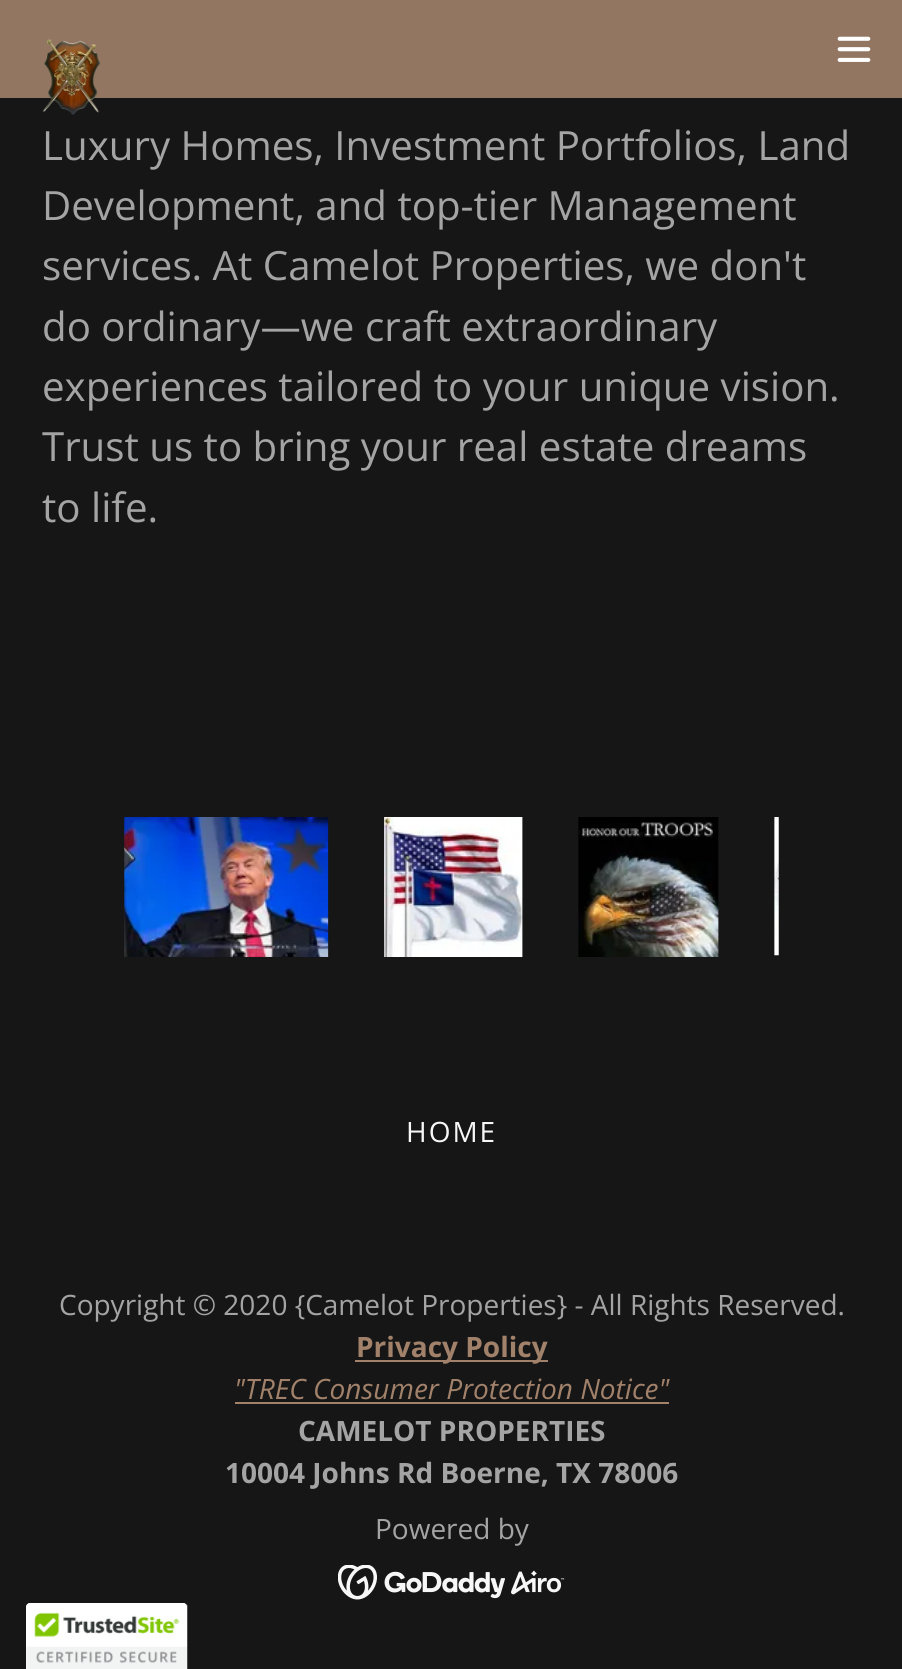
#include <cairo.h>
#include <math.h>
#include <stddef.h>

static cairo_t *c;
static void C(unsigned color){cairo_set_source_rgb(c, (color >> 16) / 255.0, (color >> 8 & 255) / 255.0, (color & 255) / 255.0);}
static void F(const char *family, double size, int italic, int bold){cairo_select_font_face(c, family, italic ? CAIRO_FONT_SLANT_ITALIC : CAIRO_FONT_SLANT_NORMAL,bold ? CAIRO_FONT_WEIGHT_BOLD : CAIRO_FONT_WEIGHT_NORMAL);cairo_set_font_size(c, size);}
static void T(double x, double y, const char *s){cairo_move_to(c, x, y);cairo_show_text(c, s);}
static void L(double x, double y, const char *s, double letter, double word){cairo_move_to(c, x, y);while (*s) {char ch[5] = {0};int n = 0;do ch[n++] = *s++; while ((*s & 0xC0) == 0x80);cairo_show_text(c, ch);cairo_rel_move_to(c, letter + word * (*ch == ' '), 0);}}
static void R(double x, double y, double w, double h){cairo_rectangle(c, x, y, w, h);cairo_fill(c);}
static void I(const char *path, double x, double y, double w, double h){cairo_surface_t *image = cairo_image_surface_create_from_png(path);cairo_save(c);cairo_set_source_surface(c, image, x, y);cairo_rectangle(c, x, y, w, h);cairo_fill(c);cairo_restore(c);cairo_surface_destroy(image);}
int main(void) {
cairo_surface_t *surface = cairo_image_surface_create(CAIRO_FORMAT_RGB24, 902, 1669);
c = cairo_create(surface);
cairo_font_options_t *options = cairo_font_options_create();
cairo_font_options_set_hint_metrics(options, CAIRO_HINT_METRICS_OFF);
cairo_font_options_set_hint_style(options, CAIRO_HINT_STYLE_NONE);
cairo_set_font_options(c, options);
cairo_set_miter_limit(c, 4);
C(0x161616);
cairo_paint(c);
cairo_set_source_rgba(c,0.631,0.506,0.416,0.9);
R(0,0,902,98);
I("1.png",42,39,59,76);
I("2.png",837,36,34,26);
F("Open Sans",40.25,0,0);
C(0xa4a4a4);
T(42,160,"Luxury Homes, Investment Portfolios, Land");
T(42,220,"Development, and top-tier Management");
T(42,280,"services. At Camelot Properties, we don't");
T(42,341,"do ordinary—we craft extraordinary");
T(42,401,"experiences tailored to your unique vision.");
T(42,461,"Trust us to bring your real estate dreams");
T(42,522,"to life.");
I("3.png",124,817,205,140);
I("4.png",384,817,139,140);
I("5.png",578,817,141,140);
I("6.png",774,817,5,139);
F("Open Sans",28,0,0);
C(0xf7f7f7);
L(406,1142,"HOME",2,0);
C(0xa4a4a4);
T(59,1315,"Copyright © 2020 {Camelot Properties} - All Rights Reserved.");
C(0xa1816a);
R(355,1360,193,2);
F("Open Sans",28,0,1);
T(356,1357,"Privacy Policy");
F("Open Sans",28,1,0);
T(234,1399,"\"TREC Consumer Protection Notice\"");
R(235,1402,434,2);
F("Open Sans",28,0,1);
C(0xa4a4a4);
T(298,1441,"CAMELOT PROPERTIES");
T(225,1483,"10004 Johns Rd Boerne, TX 78006");
F("Open Sans",28,0,0);
T(375,1539,"Powered by");
I("7.png",338,1565,227,35);
C(0xffffff);
cairo_new_path(c);
cairo_move_to(c,30,1603);
cairo_line_to(c,183,1603);
cairo_curve_to(c,185,1603,187,1605,187,1607);
cairo_line_to(c,187,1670);
cairo_line_to(c,26,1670);
cairo_line_to(c,26,1607);
cairo_curve_to(c,26,1605,28,1603,30,1603);
cairo_close_path(c);
cairo_fill(c);
I("8.png",26,1603,162,66);
cairo_surface_write_to_png(surface, "o.png");
cairo_font_options_destroy(options);
cairo_destroy(c);
cairo_surface_destroy(surface);
return 0;
}
